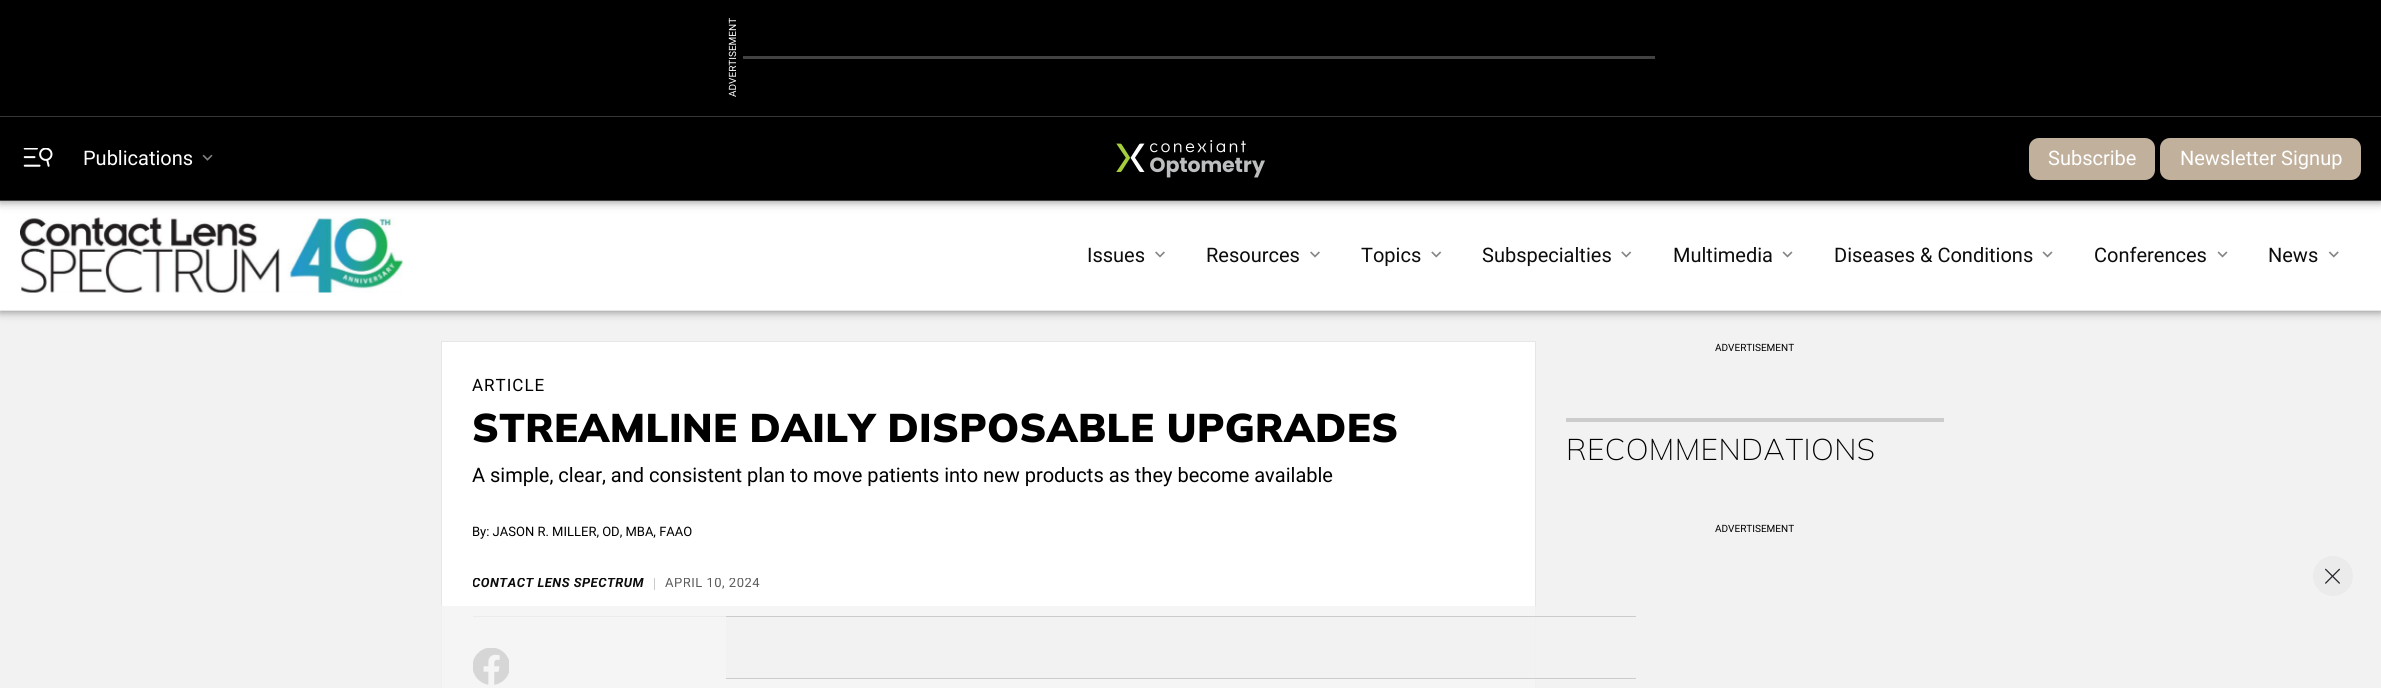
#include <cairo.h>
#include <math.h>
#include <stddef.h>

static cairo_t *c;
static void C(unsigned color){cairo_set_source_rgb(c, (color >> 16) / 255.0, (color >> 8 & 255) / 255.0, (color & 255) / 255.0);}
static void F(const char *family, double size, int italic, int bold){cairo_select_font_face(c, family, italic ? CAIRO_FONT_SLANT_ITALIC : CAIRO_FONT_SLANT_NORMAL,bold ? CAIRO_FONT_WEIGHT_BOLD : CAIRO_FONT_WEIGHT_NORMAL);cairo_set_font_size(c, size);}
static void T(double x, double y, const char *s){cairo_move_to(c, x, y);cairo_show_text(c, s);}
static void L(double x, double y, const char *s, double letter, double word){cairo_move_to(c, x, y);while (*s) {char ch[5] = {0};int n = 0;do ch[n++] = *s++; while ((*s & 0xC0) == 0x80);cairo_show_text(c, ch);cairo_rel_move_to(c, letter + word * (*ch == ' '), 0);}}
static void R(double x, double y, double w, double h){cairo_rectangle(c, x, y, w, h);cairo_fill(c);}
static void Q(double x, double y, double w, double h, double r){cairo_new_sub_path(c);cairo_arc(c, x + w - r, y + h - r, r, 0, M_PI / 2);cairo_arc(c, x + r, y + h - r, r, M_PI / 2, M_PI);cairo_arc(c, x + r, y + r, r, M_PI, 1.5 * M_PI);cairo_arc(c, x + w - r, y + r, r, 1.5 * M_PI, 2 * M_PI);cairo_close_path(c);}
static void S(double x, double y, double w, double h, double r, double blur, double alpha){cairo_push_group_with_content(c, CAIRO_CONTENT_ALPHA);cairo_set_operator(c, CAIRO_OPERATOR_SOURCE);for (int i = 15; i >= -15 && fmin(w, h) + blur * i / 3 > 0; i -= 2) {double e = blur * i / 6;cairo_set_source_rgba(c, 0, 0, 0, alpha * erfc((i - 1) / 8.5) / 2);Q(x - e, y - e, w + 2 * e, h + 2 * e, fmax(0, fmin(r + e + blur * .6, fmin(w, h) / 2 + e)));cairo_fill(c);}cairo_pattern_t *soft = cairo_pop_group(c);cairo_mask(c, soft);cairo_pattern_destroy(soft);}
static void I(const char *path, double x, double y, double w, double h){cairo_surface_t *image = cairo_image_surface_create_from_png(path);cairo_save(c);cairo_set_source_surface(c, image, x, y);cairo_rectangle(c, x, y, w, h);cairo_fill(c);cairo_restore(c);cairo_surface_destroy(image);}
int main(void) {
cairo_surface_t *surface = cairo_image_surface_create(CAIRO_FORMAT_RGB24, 2381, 688);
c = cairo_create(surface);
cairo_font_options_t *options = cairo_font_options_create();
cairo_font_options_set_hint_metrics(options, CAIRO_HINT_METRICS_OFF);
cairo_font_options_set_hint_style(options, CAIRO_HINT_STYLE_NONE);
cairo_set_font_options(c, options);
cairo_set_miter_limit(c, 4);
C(0xf2f2f2);
cairo_paint(c);
C(0x000000);
R(0,0,2381,118);
C(0x424242);
R(0,116,2381,1);
F("Roboto",10,0,0);
C(0xffffff);
cairo_save(c);
cairo_translate(c,736,97);
cairo_rotate(c,-90 * M_PI / 180);
T(0,0,"ADVERTISEMENT");
cairo_restore(c);
C(0x424242);
R(743,56,912,3);
C(0x000000);
S(0,201,2381,110,0,5,.5);
C(0xffffff);
R(0,201,2381,109);
C(0x000000);
S(0,118,2381,83,0,5,.5);
C(0x000000);
R(0,118,2381,82);
C(0x424242);
R(0,200,2381,1);
I("1.png",23,148,30,19);
F("Roboto",20,0,0);
C(0xffffff);
T(83,165,"Publications");
I("2.png",202,154,11,7);
I("3.png",1116,140,149,38);
C(0xc1b09c);
Q(2029,138,126,42,10);
cairo_fill(c);
C(0xffffff);
T(2048,165,"Subscribe");
C(0xc1b09c);
Q(2160,138,201,42,10);
cairo_fill(c);
C(0xffffff);
T(2180,165,"Newsletter Signup");
C(0xe6e6e6);
R(0,310,2381,1);
I("4.png",20,217,383,76);
C(0x0c0c0c);
T(1087,262,"Issues");
I("5.png",1155,251,10,7);
T(1206,262,"Resources");
I("5.png",1310,251,10,7);
T(1361,262,"Topics");
I("6.png",1431,251,11,7);
T(1482,262,"Subspecialties");
I("6.png",1621,251,11,7);
T(1673,262,"Multimedia");
I("7.png",1782,251,11,7);
T(1834,262,"Diseases & Conditions");
I("7.png",2042,251,11,7);
T(2094,262,"Conferences");
I("7.png",2217,251,11,7);
T(2268,262,"News");
I("8.png",2328,251,11,7);
C(0xffffff);
cairo_rectangle(c,441.5,341.5,1094,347);
cairo_fill_preserve(c);
C(0xe6e6e6);
cairo_set_line_width(c,1);
cairo_stroke(c);
C(0xcccccc);
R(473,616,253,1);
F("Roboto",17,0,0);
C(0x000000);
L(472,391,"ARTICLE",1,0);
F("Mulish Black",40,0,0);
L(472,442,"STREAMLINE DAILY DISPOSABLE UPGRADES",.4,0);
F("Roboto",20,0,0);
T(472,482,"A simple, clear, and consistent plan to move patients into new products as they become available");
F("Roboto",13,0,0);
T(472,536,"By: JASON R. MILLER, OD, MBA, FAAO");
cairo_save(c);
cairo_rectangle(c,473,578,1011,18);
cairo_clip(c);
F("Roboto",13,1,1);
C(0x0c0c0c);
L(472,587,"CONTACT LENS SPECTRUM",.5,0);
cairo_restore(c);
C(0xcccccc);
R(654,578,1,12);
cairo_save(c);
cairo_rectangle(c,473,578,1011,18);
cairo_clip(c);
C(0x5b5b5b);
L(665,587,"APRIL 10, 2024",.5,0);
cairo_restore(c);
I("9.png",473,648,36,37);
F("Roboto",10,0,0);
C(0x000000);
T(1715,351,"ADVERTISEMENT");
C(0xcccccc);
R(1566,418,378,4);
F("Mulish ExtraLight",30,0,0);
C(0x000000);
L(1566,460,"RECOMMENDATIONS",.4,0);
F("Roboto",10,0,0);
T(1715,532,"ADVERTISEMENT");
cairo_set_source_rgba(c,0.949,0.949,0.949,0.8);
R(441,606,1095,82);
C(0xebebeb);
cairo_new_path(c);
cairo_arc(c,2333,576,20,0,2 * M_PI);
cairo_fill(c);
I("10.png",2325,568,15,16);
C(0xf2f2f2);
R(726,617,809,61);
C(0xcccccc);
R(726,616,910,1);
R(726,678,910,1);
cairo_surface_write_to_png(surface, "o.png");
cairo_font_options_destroy(options);
cairo_destroy(c);
cairo_surface_destroy(surface);
return 0;
}
